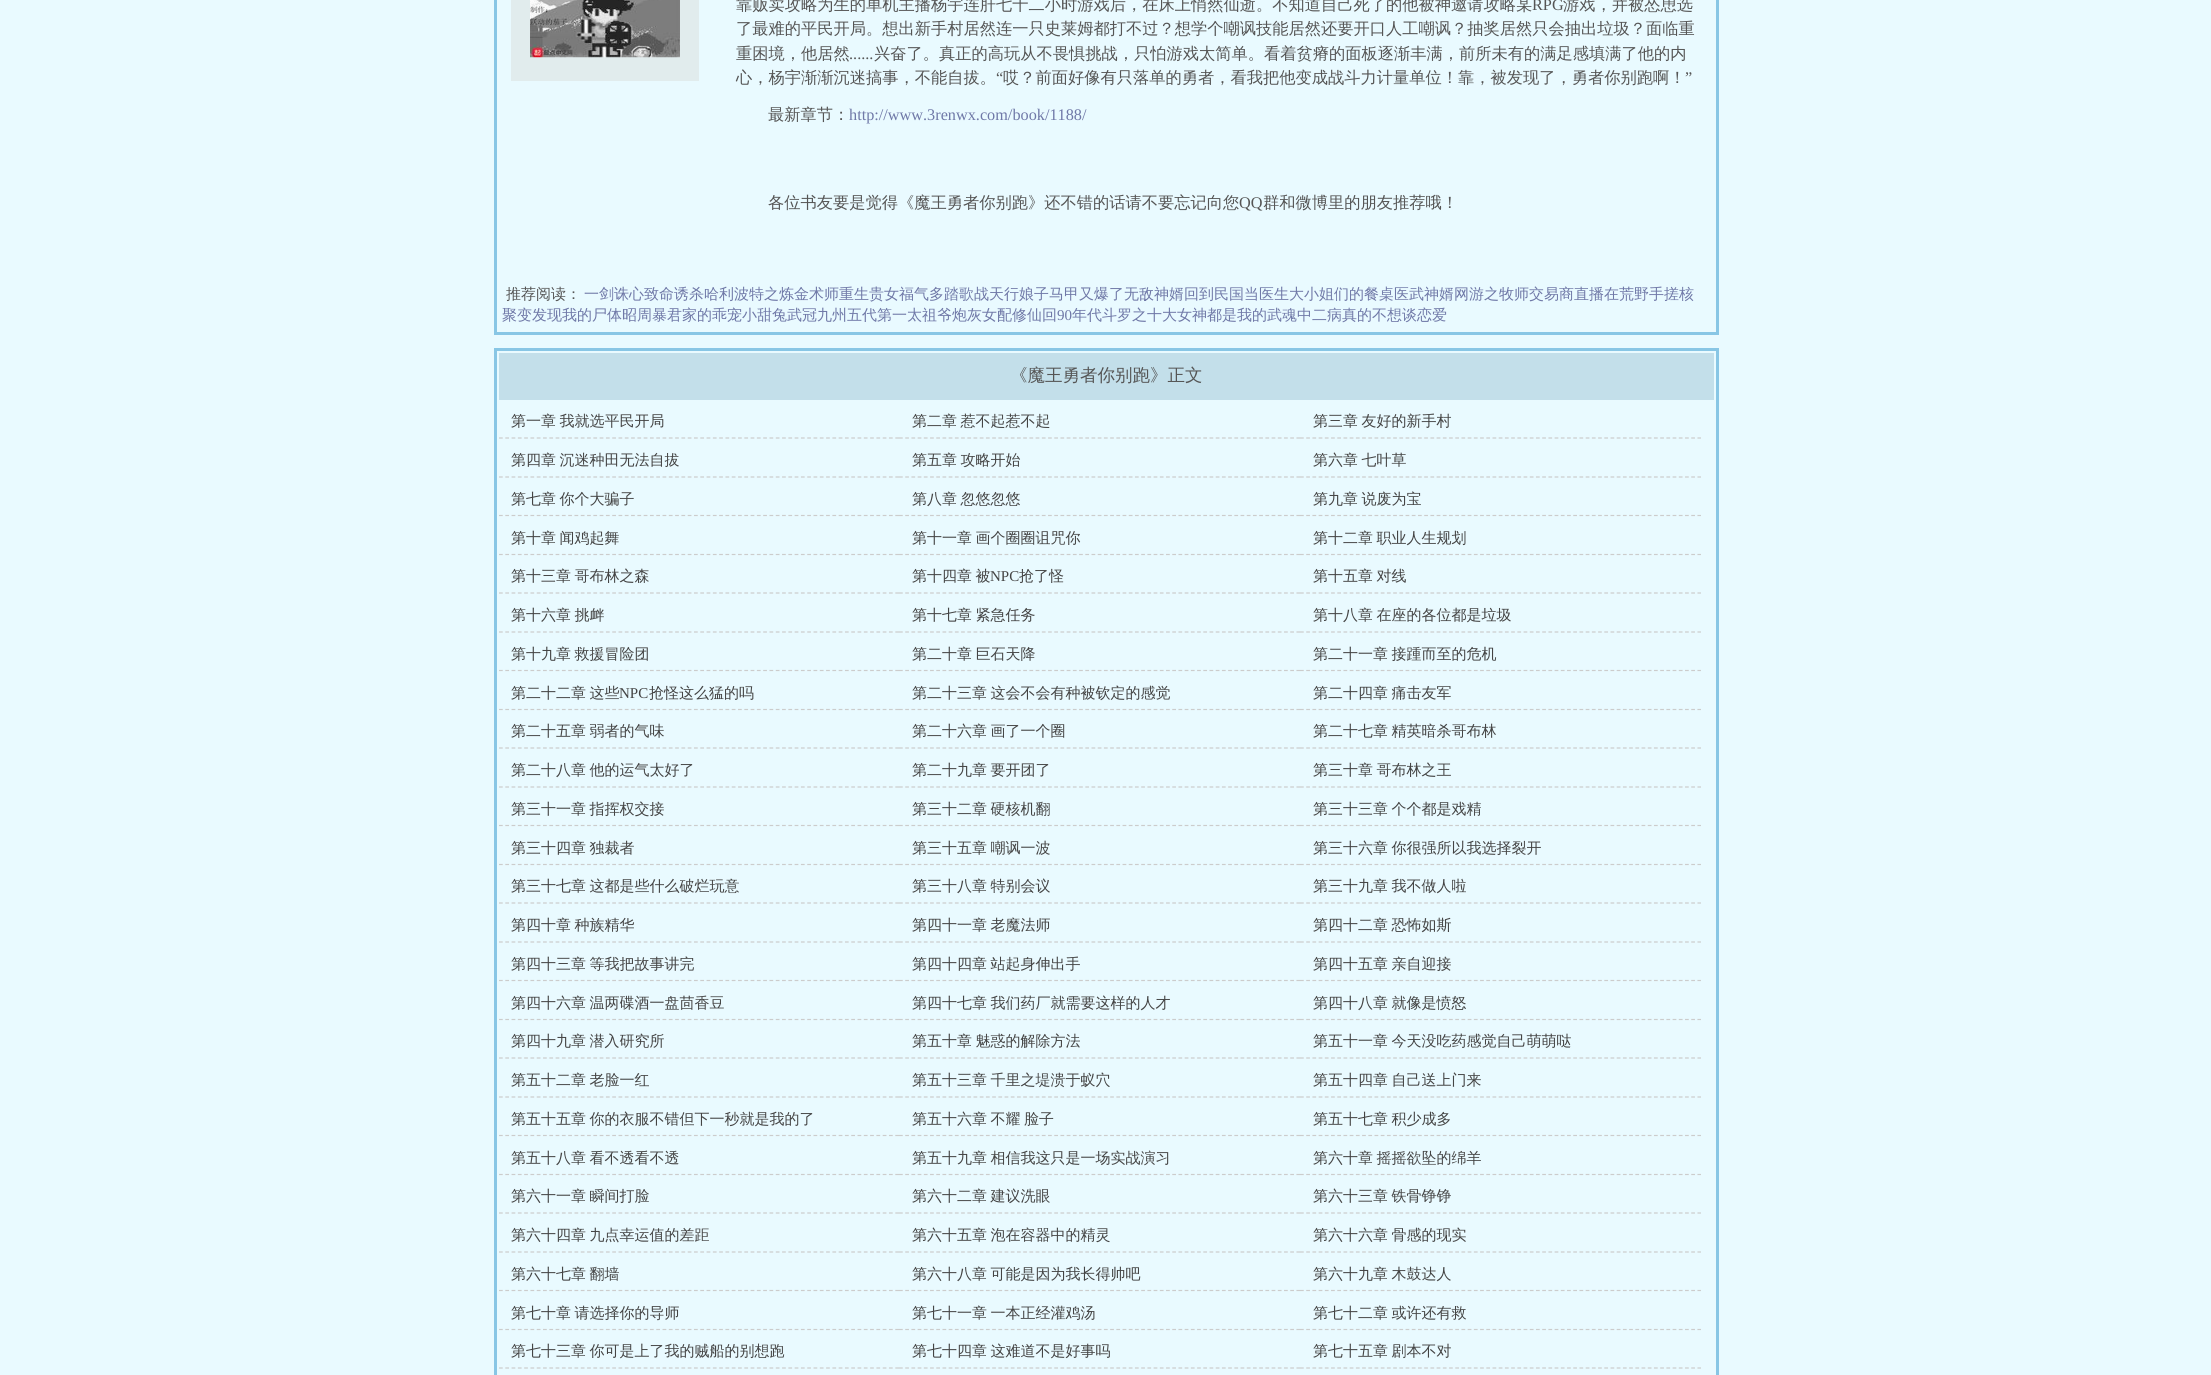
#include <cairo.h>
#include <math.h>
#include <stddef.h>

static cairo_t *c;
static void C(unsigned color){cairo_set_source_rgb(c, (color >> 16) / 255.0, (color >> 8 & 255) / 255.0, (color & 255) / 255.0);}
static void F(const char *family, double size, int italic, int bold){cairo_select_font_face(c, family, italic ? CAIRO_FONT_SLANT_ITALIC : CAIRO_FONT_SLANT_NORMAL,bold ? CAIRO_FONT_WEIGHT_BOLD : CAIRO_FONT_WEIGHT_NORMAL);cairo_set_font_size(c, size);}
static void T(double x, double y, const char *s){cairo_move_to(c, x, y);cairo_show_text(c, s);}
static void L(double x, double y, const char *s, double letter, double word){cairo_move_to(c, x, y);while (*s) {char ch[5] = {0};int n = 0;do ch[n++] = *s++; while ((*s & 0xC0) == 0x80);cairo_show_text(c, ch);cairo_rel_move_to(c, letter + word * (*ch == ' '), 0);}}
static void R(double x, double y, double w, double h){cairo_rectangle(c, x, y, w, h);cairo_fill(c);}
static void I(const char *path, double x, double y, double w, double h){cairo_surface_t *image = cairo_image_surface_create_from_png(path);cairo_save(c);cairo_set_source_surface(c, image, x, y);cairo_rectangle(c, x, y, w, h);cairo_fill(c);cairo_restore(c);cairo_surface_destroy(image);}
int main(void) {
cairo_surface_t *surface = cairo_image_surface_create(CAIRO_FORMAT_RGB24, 2211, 1375);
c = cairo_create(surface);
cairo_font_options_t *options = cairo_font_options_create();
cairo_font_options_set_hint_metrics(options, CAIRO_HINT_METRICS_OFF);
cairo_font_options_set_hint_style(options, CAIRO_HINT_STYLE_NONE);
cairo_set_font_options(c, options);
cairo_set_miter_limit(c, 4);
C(0xe9faff);
cairo_paint(c);
cairo_rectangle(c,495.5,-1.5,1222,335);
C(0x88c6e5);
cairo_set_line_width(c,3);
cairo_stroke(c);
C(0xe1eced);
R(511,0,188,81);
I("1.png",530,0,150,58);
F("WenQuanYi Zen Hei Medium",16.25,0,0);
C(0x555555);
T(736,10,"靠贩卖攻略为生的单机主播杨宇连肝七十二小时游戏后，在床上悄然仙逝。不知道自己死了的他被神邀请攻略某");
F("Liberation Serif",16.25,0,0);
T(1532,10,"RPG");
F("WenQuanYi Zen Hei Medium",16.25,0,0);
T(1563,10,"游戏，并被怂恿选");
T(736,34,"了最难的平民开局。想出新手村居然连一只史莱姆都打不过？想学个嘲讽技能居然还要开口人工嘲讽？抽奖居然只会抽出垃圾？面临重");
T(736,59,"重困境，他居然");
F("Liberation Serif",16.25,0,0);
T(849,59,"......");
F("WenQuanYi Zen Hei Medium",16.25,0,0);
T(874,59,"兴奋了。真正的高玩从不畏惧挑战，只怕游戏太简单。看着贫瘠的面板逐渐丰满，前所未有的满足感填满了他的内");
T(736,83,"心，杨宇渐渐沉迷搞事，不能自拔。");
F("Liberation Serif",16.25,0,0);
T(996,83,"“");
F("WenQuanYi Zen Hei Medium",16.25,0,0);
T(1003,83,"哎？前面好像有只落单的勇者，看我把他变成战斗力计量单位！靠，被发现了，勇者你别跑啊！");
F("Liberation Serif",16.25,0,0);
T(1685,83,"”");
F("WenQuanYi Zen Hei Medium",16.25,0,0);
T(768,120,"最新章节：");
F("Liberation Serif",16.25,0,0);
C(0x6f78a7);
T(849,120,"http://www.3renwx.com/book/1188/");
F("WenQuanYi Zen Hei Medium",16.25,0,0);
C(0x555555);
T(768,208,"各位书友要是觉得《魔王勇者你别跑》还不错的话请不要忘记向您");
F("Liberation Serif",16.25,0,0);
T(1239,208,"QQ");
F("WenQuanYi Zen Hei Medium",16.25,0,0);
T(1263,208,"群和微博里的朋友推荐哦！");
F("WenQuanYi Zen Hei Medium",15,0,0);
T(506,299,"推荐阅读：");
C(0x6f78a7);
T(584,299,"一剑诛心致命诱杀哈利波特之炼金术师重生贵女福气多踏歌战天行娘子马甲又爆了无敌神婿回到民国当医生大小姐们的餐桌医武神婿网游之牧师交易商直播在荒野手搓核");
T(502,320,"聚变发现我的尸体昭周暴君家的乖宠小甜兔武冠九州五代第一太祖爷炮灰女配修仙回");
F("Liberation Serif",15,0,0);
T(1057,320,"90");
F("WenQuanYi Zen Hei Medium",15,0,0);
T(1072,320,"年代斗罗之十大女神都是我的武魂中二病真的不想谈恋爱");
cairo_rectangle(c,495.5,349.5,1222,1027);
C(0x88c6e5);
cairo_stroke(c);
C(0xc3dfea);
R(499,353,1215,47);
F("WenQuanYi Zen Hei Medium",17.5,0,0);
C(0x555555);
T(1010,381,"《魔王勇者你别跑》正文");
cairo_new_path(c);
cairo_move_to(c,499,438);
cairo_line_to(c,899,438);
C(0xcccccc);
cairo_set_line_width(c,1.2);
cairo_set_dash(c,(double[]){3.75,2.54},2,0);
cairo_stroke(c);
F("WenQuanYi Zen Hei Medium",15,0,0);
C(0x444444);
L(511,426,"第一章 我就选平民开局",0,-1);
cairo_new_path(c);
cairo_move_to(c,899,438);
cairo_line_to(c,1300,438);
C(0xcccccc);
cairo_set_dash(c,(double[]){3.75,2.46},2,0);
cairo_stroke(c);
C(0x444444);
L(912,426,"第二章 惹不起惹不起",0,-1);
cairo_new_path(c);
cairo_move_to(c,1300,438);
cairo_line_to(c,1701,438);
C(0xcccccc);
cairo_stroke(c);
C(0x444444);
L(1313,426,"第三章 友好的新手村",0,-1);
cairo_new_path(c);
cairo_move_to(c,499,477);
cairo_line_to(c,899,477);
C(0xcccccc);
cairo_set_dash(c,(double[]){3.75,2.54},2,0);
cairo_stroke(c);
C(0x444444);
L(511,465,"第四章 沉迷种田无法自拔",0,-1);
cairo_new_path(c);
cairo_move_to(c,899,477);
cairo_line_to(c,1300,477);
C(0xcccccc);
cairo_set_dash(c,(double[]){3.75,2.46},2,0);
cairo_stroke(c);
C(0x444444);
L(912,465,"第五章 攻略开始",0,-1);
cairo_new_path(c);
cairo_move_to(c,1300,477);
cairo_line_to(c,1701,477);
C(0xcccccc);
cairo_stroke(c);
C(0x444444);
L(1313,465,"第六章 七叶草",0,-1);
cairo_new_path(c);
cairo_move_to(c,499,515.5);
cairo_line_to(c,899,515.5);
C(0xcccccc);
cairo_set_dash(c,(double[]){3.75,2.54},2,0);
cairo_stroke(c);
C(0x444444);
L(511,504,"第七章 你个大骗子",0,-1);
cairo_new_path(c);
cairo_move_to(c,899,515.5);
cairo_line_to(c,1300,515.5);
C(0xcccccc);
cairo_set_dash(c,(double[]){3.75,2.46},2,0);
cairo_stroke(c);
C(0x444444);
L(912,504,"第八章 忽悠忽悠",0,-1);
cairo_new_path(c);
cairo_move_to(c,1300,515.5);
cairo_line_to(c,1701,515.5);
C(0xcccccc);
cairo_stroke(c);
C(0x444444);
L(1313,504,"第九章 说废为宝",0,-1);
cairo_new_path(c);
cairo_move_to(c,499,554.5);
cairo_line_to(c,899,554.5);
C(0xcccccc);
cairo_set_dash(c,(double[]){3.75,2.54},2,0);
cairo_stroke(c);
C(0x444444);
L(511,543,"第十章 闻鸡起舞",0,-1);
cairo_new_path(c);
cairo_move_to(c,899,554.5);
cairo_line_to(c,1300,554.5);
C(0xcccccc);
cairo_set_dash(c,(double[]){3.75,2.46},2,0);
cairo_stroke(c);
C(0x444444);
L(912,543,"第十一章 画个圈圈诅咒你",0,-1);
cairo_new_path(c);
cairo_move_to(c,1300,554.5);
cairo_line_to(c,1701,554.5);
C(0xcccccc);
cairo_stroke(c);
C(0x444444);
L(1313,543,"第十二章 职业人生规划",0,-1);
cairo_new_path(c);
cairo_move_to(c,499,593);
cairo_line_to(c,899,593);
C(0xcccccc);
cairo_set_dash(c,(double[]){3.75,2.54},2,0);
cairo_stroke(c);
C(0x444444);
L(511,581,"第十三章 哥布林之森",0,-1);
cairo_new_path(c);
cairo_move_to(c,899,593);
cairo_line_to(c,1300,593);
C(0xcccccc);
cairo_set_dash(c,(double[]){3.75,2.46},2,0);
cairo_stroke(c);
C(0x444444);
L(912,581,"第十四章 被",0,-1);
F("Liberation Serif",15,0,0);
T(990,581,"NPC");
F("WenQuanYi Zen Hei Medium",15,0,0);
T(1019,581,"抢了怪");
cairo_new_path(c);
cairo_move_to(c,1300,593);
cairo_line_to(c,1701,593);
C(0xcccccc);
cairo_stroke(c);
C(0x444444);
L(1313,581,"第十五章 对线",0,-1);
cairo_new_path(c);
cairo_move_to(c,499,632);
cairo_line_to(c,899,632);
C(0xcccccc);
cairo_set_dash(c,(double[]){3.75,2.54},2,0);
cairo_stroke(c);
C(0x444444);
L(511,620,"第十六章 挑衅",0,-1);
cairo_new_path(c);
cairo_move_to(c,899,632);
cairo_line_to(c,1300,632);
C(0xcccccc);
cairo_set_dash(c,(double[]){3.75,2.46},2,0);
cairo_stroke(c);
C(0x444444);
L(912,620,"第十七章 紧急任务",0,-1);
cairo_new_path(c);
cairo_move_to(c,1300,632);
cairo_line_to(c,1701,632);
C(0xcccccc);
cairo_stroke(c);
C(0x444444);
L(1313,620,"第十八章 在座的各位都是垃圾",0,-1);
cairo_new_path(c);
cairo_move_to(c,499,670.5);
cairo_line_to(c,899,670.5);
C(0xcccccc);
cairo_set_dash(c,(double[]){3.75,2.54},2,0);
cairo_stroke(c);
C(0x444444);
L(511,659,"第十九章 救援冒险团",0,-1);
cairo_new_path(c);
cairo_move_to(c,899,670.5);
cairo_line_to(c,1300,670.5);
C(0xcccccc);
cairo_set_dash(c,(double[]){3.75,2.46},2,0);
cairo_stroke(c);
C(0x444444);
L(912,659,"第二十章 巨石天降",0,-1);
cairo_new_path(c);
cairo_move_to(c,1300,670.5);
cairo_line_to(c,1701,670.5);
C(0xcccccc);
cairo_stroke(c);
C(0x444444);
L(1313,659,"第二十一章 接踵而至的危机",0,-1);
cairo_new_path(c);
cairo_move_to(c,499,709.5);
cairo_line_to(c,899,709.5);
C(0xcccccc);
cairo_set_dash(c,(double[]){3.75,2.54},2,0);
cairo_stroke(c);
C(0x444444);
L(511,698,"第二十二章 这些",0,-1);
F("Liberation Serif",15,0,0);
T(619,698,"NPC");
F("WenQuanYi Zen Hei Medium",15,0,0);
T(649,698,"抢怪这么猛的吗");
cairo_new_path(c);
cairo_move_to(c,899,709.5);
cairo_line_to(c,1300,709.5);
C(0xcccccc);
cairo_set_dash(c,(double[]){3.75,2.46},2,0);
cairo_stroke(c);
C(0x444444);
L(912,698,"第二十三章 这会不会有种被钦定的感觉",0,-1);
cairo_new_path(c);
cairo_move_to(c,1300,709.5);
cairo_line_to(c,1701,709.5);
C(0xcccccc);
cairo_stroke(c);
C(0x444444);
L(1313,698,"第二十四章 痛击友军",0,-1);
cairo_new_path(c);
cairo_move_to(c,499,748);
cairo_line_to(c,899,748);
C(0xcccccc);
cairo_set_dash(c,(double[]){3.75,2.54},2,0);
cairo_stroke(c);
C(0x444444);
L(511,736,"第二十五章 弱者的气味",0,-1);
cairo_new_path(c);
cairo_move_to(c,899,748);
cairo_line_to(c,1300,748);
C(0xcccccc);
cairo_set_dash(c,(double[]){3.75,2.46},2,0);
cairo_stroke(c);
C(0x444444);
L(912,736,"第二十六章 画了一个圈",0,-1);
cairo_new_path(c);
cairo_move_to(c,1300,748);
cairo_line_to(c,1701,748);
C(0xcccccc);
cairo_stroke(c);
C(0x444444);
L(1313,736,"第二十七章 精英暗杀哥布林",0,-1);
cairo_new_path(c);
cairo_move_to(c,499,787);
cairo_line_to(c,899,787);
C(0xcccccc);
cairo_set_dash(c,(double[]){3.75,2.54},2,0);
cairo_stroke(c);
C(0x444444);
L(511,775,"第二十八章 他的运气太好了",0,-1);
cairo_new_path(c);
cairo_move_to(c,899,787);
cairo_line_to(c,1300,787);
C(0xcccccc);
cairo_set_dash(c,(double[]){3.75,2.46},2,0);
cairo_stroke(c);
C(0x444444);
L(912,775,"第二十九章 要开团了",0,-1);
cairo_new_path(c);
cairo_move_to(c,1300,787);
cairo_line_to(c,1701,787);
C(0xcccccc);
cairo_stroke(c);
C(0x444444);
L(1313,775,"第三十章 哥布林之王",0,-1);
cairo_new_path(c);
cairo_move_to(c,499,825.5);
cairo_line_to(c,899,825.5);
C(0xcccccc);
cairo_set_dash(c,(double[]){3.75,2.54},2,0);
cairo_stroke(c);
C(0x444444);
L(511,814,"第三十一章 指挥权交接",0,-1);
cairo_new_path(c);
cairo_move_to(c,899,825.5);
cairo_line_to(c,1300,825.5);
C(0xcccccc);
cairo_set_dash(c,(double[]){3.75,2.46},2,0);
cairo_stroke(c);
C(0x444444);
L(912,814,"第三十二章 硬核机翻",0,-1);
cairo_new_path(c);
cairo_move_to(c,1300,825.5);
cairo_line_to(c,1701,825.5);
C(0xcccccc);
cairo_stroke(c);
C(0x444444);
L(1313,814,"第三十三章 个个都是戏精",0,-1);
cairo_new_path(c);
cairo_move_to(c,499,864.5);
cairo_line_to(c,899,864.5);
C(0xcccccc);
cairo_set_dash(c,(double[]){3.75,2.54},2,0);
cairo_stroke(c);
C(0x444444);
L(511,853,"第三十四章 独裁者",0,-1);
cairo_new_path(c);
cairo_move_to(c,899,864.5);
cairo_line_to(c,1300,864.5);
C(0xcccccc);
cairo_set_dash(c,(double[]){3.75,2.46},2,0);
cairo_stroke(c);
C(0x444444);
L(912,853,"第三十五章 嘲讽一波",0,-1);
cairo_new_path(c);
cairo_move_to(c,1300,864.5);
cairo_line_to(c,1701,864.5);
C(0xcccccc);
cairo_stroke(c);
C(0x444444);
L(1313,853,"第三十六章 你很强所以我选择裂开",0,-1);
cairo_new_path(c);
cairo_move_to(c,499,903);
cairo_line_to(c,899,903);
C(0xcccccc);
cairo_set_dash(c,(double[]){3.75,2.54},2,0);
cairo_stroke(c);
C(0x444444);
L(511,891,"第三十七章 这都是些什么破烂玩意",0,-1);
cairo_new_path(c);
cairo_move_to(c,899,903);
cairo_line_to(c,1300,903);
C(0xcccccc);
cairo_set_dash(c,(double[]){3.75,2.46},2,0);
cairo_stroke(c);
C(0x444444);
L(912,891,"第三十八章 特别会议",0,-1);
cairo_new_path(c);
cairo_move_to(c,1300,903);
cairo_line_to(c,1701,903);
C(0xcccccc);
cairo_stroke(c);
C(0x444444);
L(1313,891,"第三十九章 我不做人啦",0,-1);
cairo_new_path(c);
cairo_move_to(c,499,942);
cairo_line_to(c,899,942);
C(0xcccccc);
cairo_set_dash(c,(double[]){3.75,2.54},2,0);
cairo_stroke(c);
C(0x444444);
L(511,930,"第四十章 种族精华",0,-1);
cairo_new_path(c);
cairo_move_to(c,899,942);
cairo_line_to(c,1300,942);
C(0xcccccc);
cairo_set_dash(c,(double[]){3.75,2.46},2,0);
cairo_stroke(c);
C(0x444444);
L(912,930,"第四十一章 老魔法师",0,-1);
cairo_new_path(c);
cairo_move_to(c,1300,942);
cairo_line_to(c,1701,942);
C(0xcccccc);
cairo_stroke(c);
C(0x444444);
L(1313,930,"第四十二章 恐怖如斯",0,-1);
cairo_new_path(c);
cairo_move_to(c,499,980.5);
cairo_line_to(c,899,980.5);
C(0xcccccc);
cairo_set_dash(c,(double[]){3.75,2.54},2,0);
cairo_stroke(c);
C(0x444444);
L(511,969,"第四十三章 等我把故事讲完",0,-1);
cairo_new_path(c);
cairo_move_to(c,899,980.5);
cairo_line_to(c,1300,980.5);
C(0xcccccc);
cairo_set_dash(c,(double[]){3.75,2.46},2,0);
cairo_stroke(c);
C(0x444444);
L(912,969,"第四十四章 站起身伸出手",0,-1);
cairo_new_path(c);
cairo_move_to(c,1300,980.5);
cairo_line_to(c,1701,980.5);
C(0xcccccc);
cairo_stroke(c);
C(0x444444);
L(1313,969,"第四十五章 亲自迎接",0,-1);
cairo_new_path(c);
cairo_move_to(c,499,1019.5);
cairo_line_to(c,899,1019.5);
C(0xcccccc);
cairo_set_dash(c,(double[]){3.75,2.54},2,0);
cairo_stroke(c);
C(0x444444);
L(511,1008,"第四十六章 温两碟酒一盘茴香豆",0,-1);
cairo_new_path(c);
cairo_move_to(c,899,1019.5);
cairo_line_to(c,1300,1019.5);
C(0xcccccc);
cairo_set_dash(c,(double[]){3.75,2.46},2,0);
cairo_stroke(c);
C(0x444444);
L(912,1008,"第四十七章 我们药厂就需要这样的人才",0,-1);
cairo_new_path(c);
cairo_move_to(c,1300,1019.5);
cairo_line_to(c,1701,1019.5);
C(0xcccccc);
cairo_stroke(c);
C(0x444444);
L(1313,1008,"第四十八章 就像是愤怒",0,-1);
cairo_new_path(c);
cairo_move_to(c,499,1058);
cairo_line_to(c,899,1058);
C(0xcccccc);
cairo_set_dash(c,(double[]){3.75,2.54},2,0);
cairo_stroke(c);
C(0x444444);
L(511,1046,"第四十九章 潜入研究所",0,-1);
cairo_new_path(c);
cairo_move_to(c,899,1058);
cairo_line_to(c,1300,1058);
C(0xcccccc);
cairo_set_dash(c,(double[]){3.75,2.46},2,0);
cairo_stroke(c);
C(0x444444);
L(912,1046,"第五十章 魅惑的解除方法",0,-1);
cairo_new_path(c);
cairo_move_to(c,1300,1058);
cairo_line_to(c,1701,1058);
C(0xcccccc);
cairo_stroke(c);
C(0x444444);
L(1313,1046,"第五十一章 今天没吃药感觉自己萌萌哒",0,-1);
cairo_new_path(c);
cairo_move_to(c,499,1097);
cairo_line_to(c,899,1097);
C(0xcccccc);
cairo_set_dash(c,(double[]){3.75,2.54},2,0);
cairo_stroke(c);
C(0x444444);
L(511,1085,"第五十二章 老脸一红",0,-1);
cairo_new_path(c);
cairo_move_to(c,899,1097);
cairo_line_to(c,1300,1097);
C(0xcccccc);
cairo_set_dash(c,(double[]){3.75,2.46},2,0);
cairo_stroke(c);
C(0x444444);
L(912,1085,"第五十三章 千里之堤溃于蚁穴",0,-1);
cairo_new_path(c);
cairo_move_to(c,1300,1097);
cairo_line_to(c,1701,1097);
C(0xcccccc);
cairo_stroke(c);
C(0x444444);
L(1313,1085,"第五十四章 自己送上门来",0,-1);
cairo_new_path(c);
cairo_move_to(c,499,1135.5);
cairo_line_to(c,899,1135.5);
C(0xcccccc);
cairo_set_dash(c,(double[]){3.75,2.54},2,0);
cairo_stroke(c);
C(0x444444);
L(511,1124,"第五十五章 你的衣服不错但下一秒就是我的了",0,-1);
cairo_new_path(c);
cairo_move_to(c,899,1135.5);
cairo_line_to(c,1300,1135.5);
C(0xcccccc);
cairo_set_dash(c,(double[]){3.75,2.46},2,0);
cairo_stroke(c);
C(0x444444);
L(912,1124,"第五十六章 不耀 脸子",0,-1);
cairo_new_path(c);
cairo_move_to(c,1300,1135.5);
cairo_line_to(c,1701,1135.5);
C(0xcccccc);
cairo_stroke(c);
C(0x444444);
L(1313,1124,"第五十七章 积少成多",0,-1);
cairo_new_path(c);
cairo_move_to(c,499,1174.5);
cairo_line_to(c,899,1174.5);
C(0xcccccc);
cairo_set_dash(c,(double[]){3.75,2.54},2,0);
cairo_stroke(c);
C(0x444444);
L(511,1163,"第五十八章 看不透看不透",0,-1);
cairo_new_path(c);
cairo_move_to(c,899,1174.5);
cairo_line_to(c,1300,1174.5);
C(0xcccccc);
cairo_set_dash(c,(double[]){3.75,2.46},2,0);
cairo_stroke(c);
C(0x444444);
L(912,1163,"第五十九章 相信我这只是一场实战演习",0,-1);
cairo_new_path(c);
cairo_move_to(c,1300,1174.5);
cairo_line_to(c,1701,1174.5);
C(0xcccccc);
cairo_stroke(c);
C(0x444444);
L(1313,1163,"第六十章 摇摇欲坠的绵羊",0,-1);
cairo_new_path(c);
cairo_move_to(c,499,1213);
cairo_line_to(c,899,1213);
C(0xcccccc);
cairo_set_dash(c,(double[]){3.75,2.54},2,0);
cairo_stroke(c);
C(0x444444);
L(511,1201,"第六十一章 瞬间打脸",0,-1);
cairo_new_path(c);
cairo_move_to(c,899,1213);
cairo_line_to(c,1300,1213);
C(0xcccccc);
cairo_set_dash(c,(double[]){3.75,2.46},2,0);
cairo_stroke(c);
C(0x444444);
L(912,1201,"第六十二章 建议洗眼",0,-1);
cairo_new_path(c);
cairo_move_to(c,1300,1213);
cairo_line_to(c,1701,1213);
C(0xcccccc);
cairo_stroke(c);
C(0x444444);
L(1313,1201,"第六十三章 铁骨铮铮",0,-1);
cairo_new_path(c);
cairo_move_to(c,499,1252);
cairo_line_to(c,899,1252);
C(0xcccccc);
cairo_set_dash(c,(double[]){3.75,2.54},2,0);
cairo_stroke(c);
C(0x444444);
L(511,1240,"第六十四章 九点幸运值的差距",0,-1);
cairo_new_path(c);
cairo_move_to(c,899,1252);
cairo_line_to(c,1300,1252);
C(0xcccccc);
cairo_set_dash(c,(double[]){3.75,2.46},2,0);
cairo_stroke(c);
C(0x444444);
L(912,1240,"第六十五章 泡在容器中的精灵",0,-1);
cairo_new_path(c);
cairo_move_to(c,1300,1252);
cairo_line_to(c,1701,1252);
C(0xcccccc);
cairo_stroke(c);
C(0x444444);
L(1313,1240,"第六十六章 骨感的现实",0,-1);
cairo_new_path(c);
cairo_move_to(c,499,1290.5);
cairo_line_to(c,899,1290.5);
C(0xcccccc);
cairo_set_dash(c,(double[]){3.75,2.54},2,0);
cairo_stroke(c);
C(0x444444);
L(511,1279,"第六十七章 翻墙",0,-1);
cairo_new_path(c);
cairo_move_to(c,899,1290.5);
cairo_line_to(c,1300,1290.5);
C(0xcccccc);
cairo_set_dash(c,(double[]){3.75,2.46},2,0);
cairo_stroke(c);
C(0x444444);
L(912,1279,"第六十八章 可能是因为我长得帅吧",0,-1);
cairo_new_path(c);
cairo_move_to(c,1300,1290.5);
cairo_line_to(c,1701,1290.5);
C(0xcccccc);
cairo_stroke(c);
C(0x444444);
L(1313,1279,"第六十九章 木鼓达人",0,-1);
cairo_new_path(c);
cairo_move_to(c,499,1329.5);
cairo_line_to(c,899,1329.5);
C(0xcccccc);
cairo_set_dash(c,(double[]){3.75,2.54},2,0);
cairo_stroke(c);
C(0x444444);
L(511,1318,"第七十章 请选择你的导师",0,-1);
cairo_new_path(c);
cairo_move_to(c,899,1329.5);
cairo_line_to(c,1300,1329.5);
C(0xcccccc);
cairo_set_dash(c,(double[]){3.75,2.46},2,0);
cairo_stroke(c);
C(0x444444);
L(912,1318,"第七十一章 一本正经灌鸡汤",0,-1);
cairo_new_path(c);
cairo_move_to(c,1300,1329.5);
cairo_line_to(c,1701,1329.5);
C(0xcccccc);
cairo_stroke(c);
C(0x444444);
L(1313,1318,"第七十二章 或许还有救",0,-1);
cairo_new_path(c);
cairo_move_to(c,499,1368);
cairo_line_to(c,899,1368);
C(0xcccccc);
cairo_set_dash(c,(double[]){3.75,2.54},2,0);
cairo_stroke(c);
C(0x444444);
L(511,1356,"第七十三章 你可是上了我的贼船的别想跑",0,-1);
cairo_new_path(c);
cairo_move_to(c,899,1368);
cairo_line_to(c,1300,1368);
C(0xcccccc);
cairo_set_dash(c,(double[]){3.75,2.46},2,0);
cairo_stroke(c);
C(0x444444);
L(912,1356,"第七十四章 这难道不是好事吗",0,-1);
cairo_new_path(c);
cairo_move_to(c,1300,1368);
cairo_line_to(c,1701,1368);
C(0xcccccc);
cairo_stroke(c);
C(0x444444);
L(1313,1356,"第七十五章 剧本不对",0,-1);
cairo_surface_write_to_png(surface, "o.png");
cairo_font_options_destroy(options);
cairo_destroy(c);
cairo_surface_destroy(surface);
return 0;
}
